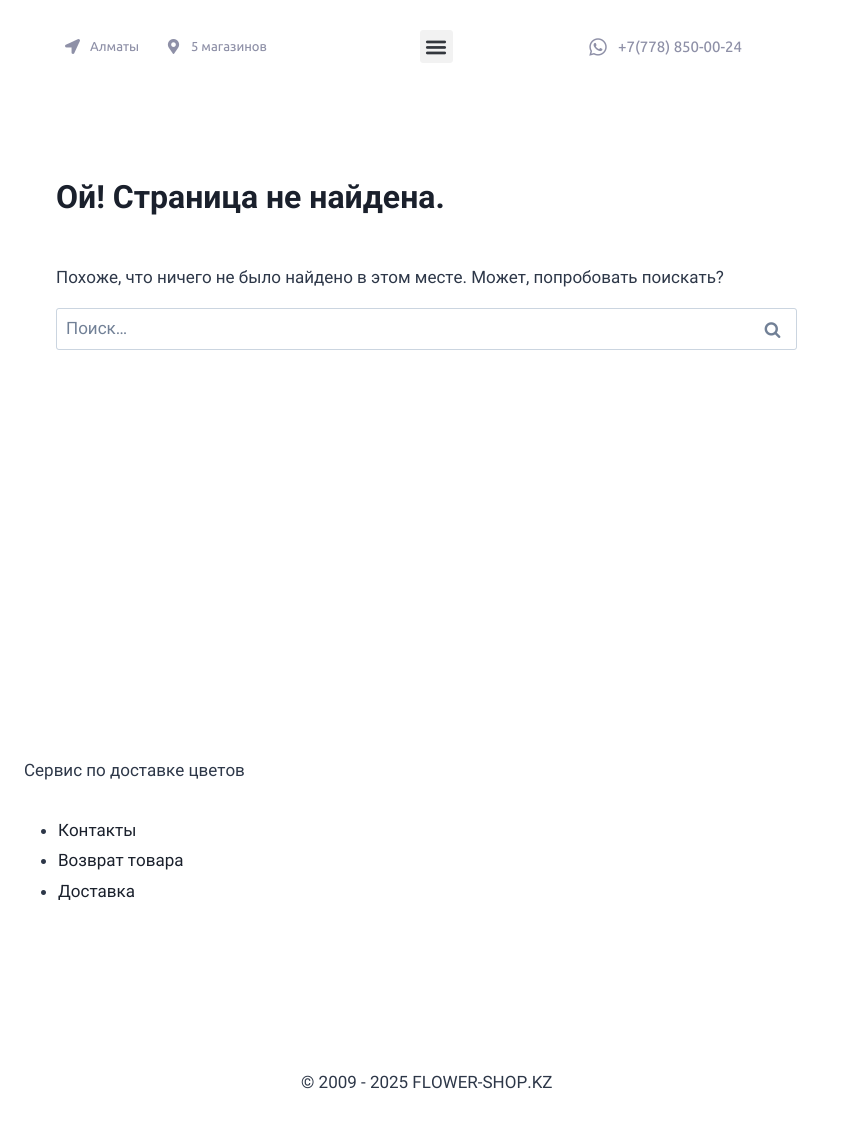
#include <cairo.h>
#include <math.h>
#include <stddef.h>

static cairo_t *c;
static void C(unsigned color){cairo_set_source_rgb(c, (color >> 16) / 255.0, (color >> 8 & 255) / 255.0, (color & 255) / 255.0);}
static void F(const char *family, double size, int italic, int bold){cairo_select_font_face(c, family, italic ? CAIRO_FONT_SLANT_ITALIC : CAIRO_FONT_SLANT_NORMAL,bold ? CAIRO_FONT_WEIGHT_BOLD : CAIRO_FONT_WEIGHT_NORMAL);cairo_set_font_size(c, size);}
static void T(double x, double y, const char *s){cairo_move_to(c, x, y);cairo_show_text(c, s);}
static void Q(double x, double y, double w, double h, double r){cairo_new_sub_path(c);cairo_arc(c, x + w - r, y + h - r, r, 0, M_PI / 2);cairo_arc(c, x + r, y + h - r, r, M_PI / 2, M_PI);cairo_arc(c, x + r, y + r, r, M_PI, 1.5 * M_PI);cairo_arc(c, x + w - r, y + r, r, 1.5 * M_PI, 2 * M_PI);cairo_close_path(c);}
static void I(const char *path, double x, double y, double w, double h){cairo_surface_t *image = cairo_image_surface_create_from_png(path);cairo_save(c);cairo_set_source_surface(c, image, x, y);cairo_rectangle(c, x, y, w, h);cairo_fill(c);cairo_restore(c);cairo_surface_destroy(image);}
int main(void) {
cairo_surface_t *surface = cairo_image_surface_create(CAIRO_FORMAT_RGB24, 853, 1143);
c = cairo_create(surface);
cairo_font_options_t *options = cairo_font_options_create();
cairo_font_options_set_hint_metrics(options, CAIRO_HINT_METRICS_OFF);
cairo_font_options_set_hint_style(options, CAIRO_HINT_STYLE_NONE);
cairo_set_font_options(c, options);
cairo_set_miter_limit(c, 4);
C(0xffffff);
cairo_paint(c);
I("1.png",65,39,15,15);
F("Ubuntu Medium",13,0,0);
C(0x8e90a7);
T(90,51,"Алматы");
I("2.png",167,39,13,15);
T(191,51,"5 магазинов");
C(0xf2f2f2);
Q(420,30,33,33,3);
cairo_fill(c);
I("3.png",425,40,22,15);
I("4.png",589,38,18,18);
F("Ubuntu Medium",15,0,0);
C(0x8e90a7);
T(618,52,"+7(778) 850-00-24");
F("Roboto",32,0,1);
C(0x1a202c);
T(56,208,"Ой! Страница не найдена.");
F("Roboto",17,0,0);
C(0x2d3748);
T(56,283,"Похоже, что ничего не было найдено в этом месте. Может, попробовать поискать?");
Q(56.5,308.5,740,41,2.5);
C(0xcbd5e0);
cairo_set_line_width(c,1);
cairo_stroke(c);
C(0x718096);
T(66,334,"Поиск…");
I("5.png",764,322,17,16);
C(0x2d3748);
T(24,776,"Сервис по доставке цветов");
cairo_new_path(c);
cairo_arc(c,43.5,831.5,2.5,0,2 * M_PI);
cairo_fill(c);
C(0x1a202c);
T(58,836,"Контакты");
C(0x2d3748);
cairo_new_path(c);
cairo_arc(c,43.5,861.5,2.5,0,2 * M_PI);
cairo_fill(c);
C(0x1a202c);
T(58,866,"Возврат товара");
C(0x2d3748);
cairo_new_path(c);
cairo_arc(c,43.5,892.5,2.5,0,2 * M_PI);
cairo_fill(c);
C(0x1a202c);
T(58,897,"Доставка");
C(0x2d3748);
T(301,1088,"© 2009 - 2025 FLOWER-SHOP.KZ");
cairo_surface_write_to_png(surface, "o.png");
cairo_font_options_destroy(options);
cairo_destroy(c);
cairo_surface_destroy(surface);
return 0;
}
